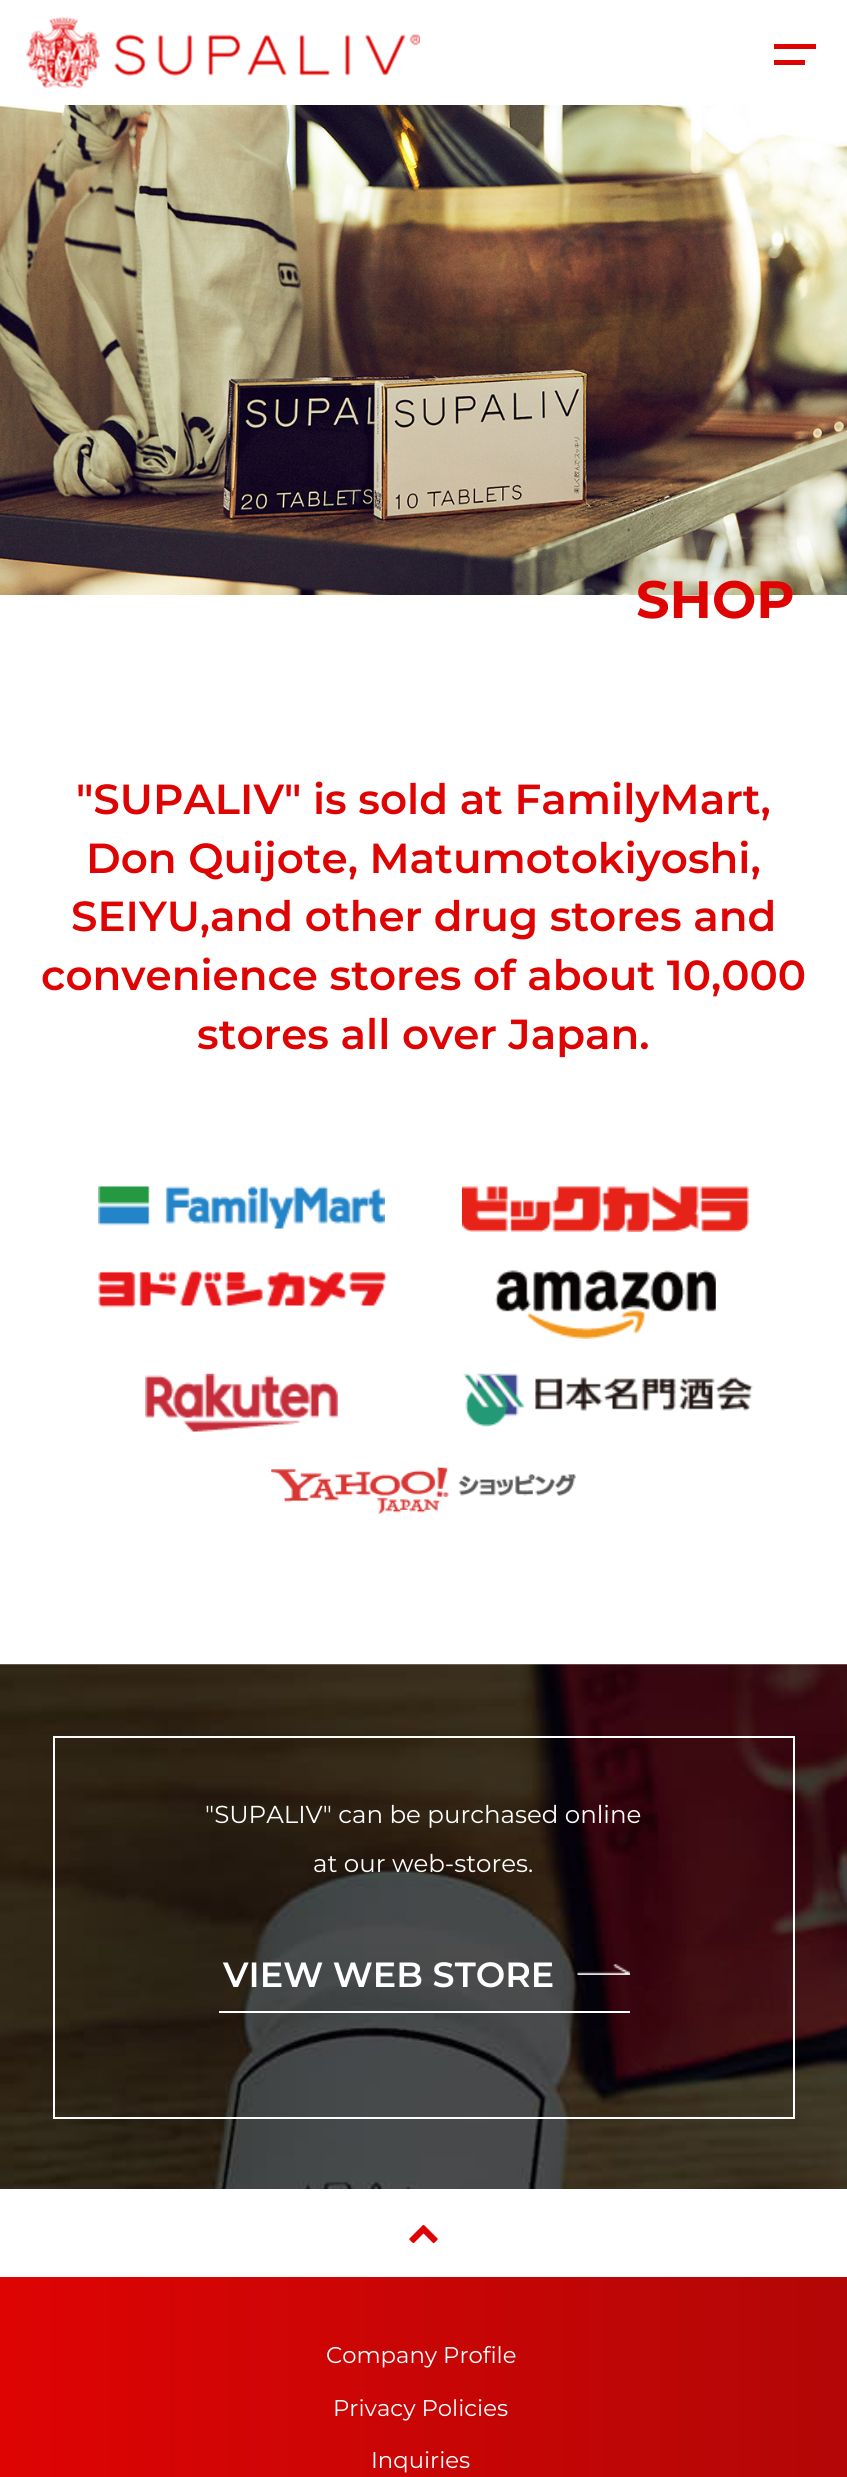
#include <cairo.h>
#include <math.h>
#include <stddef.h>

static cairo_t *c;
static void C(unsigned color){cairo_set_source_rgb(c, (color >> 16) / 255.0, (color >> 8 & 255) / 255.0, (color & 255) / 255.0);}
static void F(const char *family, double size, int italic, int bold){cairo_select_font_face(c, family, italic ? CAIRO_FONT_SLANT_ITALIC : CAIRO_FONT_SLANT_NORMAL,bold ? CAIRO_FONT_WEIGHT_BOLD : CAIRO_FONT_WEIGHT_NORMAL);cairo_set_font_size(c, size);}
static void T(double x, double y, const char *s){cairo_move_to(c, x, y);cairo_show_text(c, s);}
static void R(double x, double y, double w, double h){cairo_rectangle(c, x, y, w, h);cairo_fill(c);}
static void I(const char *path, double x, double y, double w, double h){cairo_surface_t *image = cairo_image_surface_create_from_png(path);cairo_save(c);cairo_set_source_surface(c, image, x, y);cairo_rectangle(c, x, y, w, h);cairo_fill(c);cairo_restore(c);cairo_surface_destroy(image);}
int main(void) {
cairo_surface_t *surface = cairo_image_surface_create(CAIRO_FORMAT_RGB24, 847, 2477);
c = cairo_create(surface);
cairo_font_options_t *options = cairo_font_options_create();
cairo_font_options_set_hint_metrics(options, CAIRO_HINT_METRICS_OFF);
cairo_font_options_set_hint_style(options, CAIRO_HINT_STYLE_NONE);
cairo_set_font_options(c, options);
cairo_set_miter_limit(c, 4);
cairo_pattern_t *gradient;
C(0xffffff);
cairo_paint(c);
I("1.png",26,17,394,71);
C(0xde0404);
R(774,44,42,5);
R(774,60,31,5);
I("2.png",0,105,847,490);
F("Montserrat",52.5,0,1);
T(636,618,"SHOP");
F("Montserrat SemiBold",42,0,0);
T(76,814,"\"SUPALIV\" is sold at FamilyMart,");
T(86,873,"Don Quijote, Matumotokiyoshi,");
T(71,931,"SEIYU,and other drug stores and");
T(41,990,"convenience stores of about 10,000");
T(197,1049,"stores all over Japan.");
I("3.png",98,1186,287,43);
I("4.png",462,1186,287,46);
I("5.png",98,1270,289,38);
I("6.png",495,1270,221,69);
I("7.png",145,1373,193,59);
I("8.png",463,1373,290,54);
I("9.png",271,1466,305,48);
I("10.png",0,1664,847,525);
cairo_rectangle(c,54,1737,740,381);
C(0xffffff);
cairo_stroke(c);
F("Montserrat",24.5,0,0);
T(205,1823,"\"SUPALIV\" can be purchased online");
T(313,1872,"at our web-stores.");
R(219,2011,411,2);
F("Montserrat SemiBold",35,0,0);
T(223,1987,"VIEW WEB STORE");
I("11.png",577,1964,53,11);
I("12.png",409,2225,29,19);
gradient = cairo_pattern_create_linear(847,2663,0,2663);
cairo_pattern_add_color_stop_rgba(gradient,0,0.702,0.024,0.024,1);
cairo_pattern_add_color_stop_rgba(gradient,1,0.871,0.016,0.016,1);
cairo_set_source(c,gradient);
cairo_pattern_destroy(gradient);
R(0,2277,847,200);
F("Montserrat",22.75,0,0);
C(0xffffff);
T(326,2363,"Company Profile");
T(333,2416,"Privacy Policies");
T(371,2468,"Inquiries");
cairo_surface_write_to_png(surface, "o.png");
cairo_font_options_destroy(options);
cairo_destroy(c);
cairo_surface_destroy(surface);
return 0;
}
